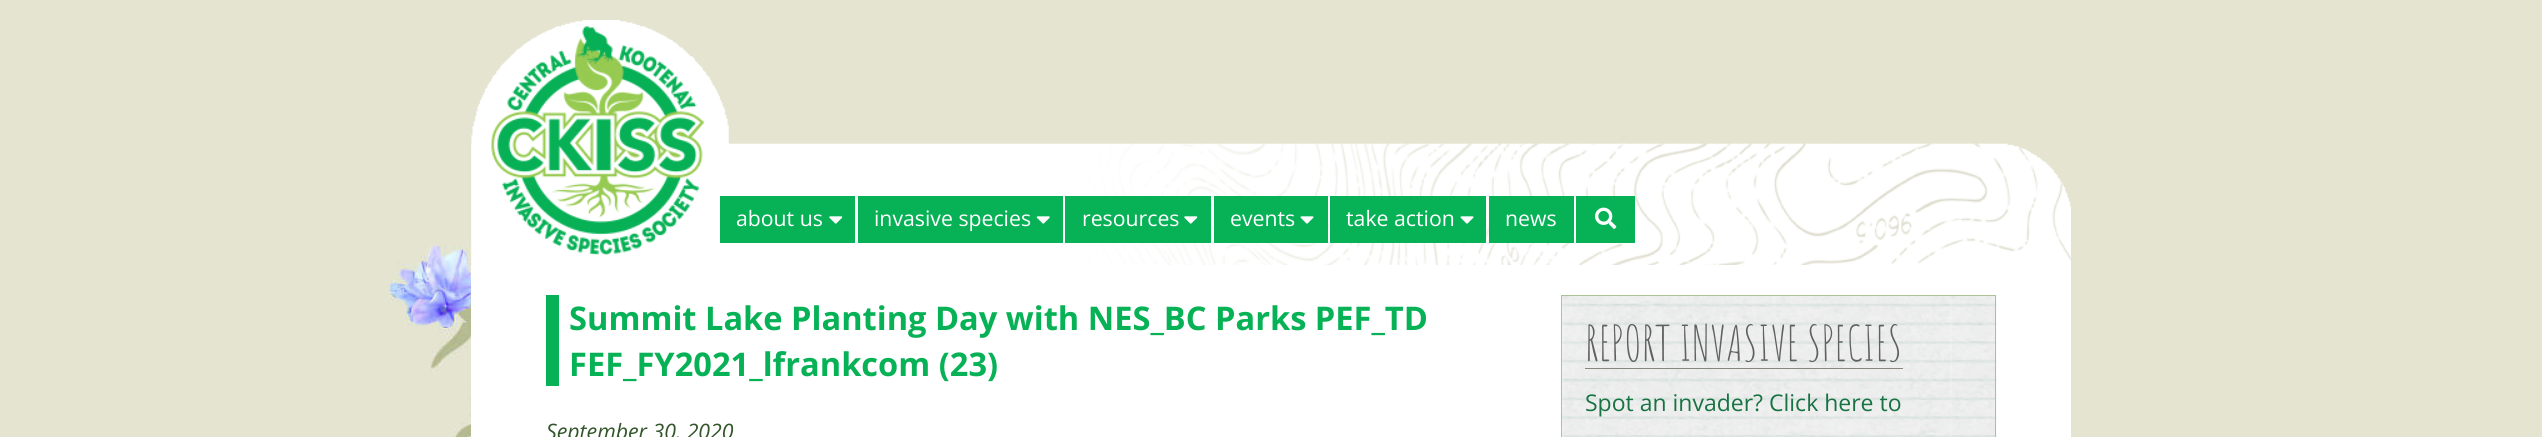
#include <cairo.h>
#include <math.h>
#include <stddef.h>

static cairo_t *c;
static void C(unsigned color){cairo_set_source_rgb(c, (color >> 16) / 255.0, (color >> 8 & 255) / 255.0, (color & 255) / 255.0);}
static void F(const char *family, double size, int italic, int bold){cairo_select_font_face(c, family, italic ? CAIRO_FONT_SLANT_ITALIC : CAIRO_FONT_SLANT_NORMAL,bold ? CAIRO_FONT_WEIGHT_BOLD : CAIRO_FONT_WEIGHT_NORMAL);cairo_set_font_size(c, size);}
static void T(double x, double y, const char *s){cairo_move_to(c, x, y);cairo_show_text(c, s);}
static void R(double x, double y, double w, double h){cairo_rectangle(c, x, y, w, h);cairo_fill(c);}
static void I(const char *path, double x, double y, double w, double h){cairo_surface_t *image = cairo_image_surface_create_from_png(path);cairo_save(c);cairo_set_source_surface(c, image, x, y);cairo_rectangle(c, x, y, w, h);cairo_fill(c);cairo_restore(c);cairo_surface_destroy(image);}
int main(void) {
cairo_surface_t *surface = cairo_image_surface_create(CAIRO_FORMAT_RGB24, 2542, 437);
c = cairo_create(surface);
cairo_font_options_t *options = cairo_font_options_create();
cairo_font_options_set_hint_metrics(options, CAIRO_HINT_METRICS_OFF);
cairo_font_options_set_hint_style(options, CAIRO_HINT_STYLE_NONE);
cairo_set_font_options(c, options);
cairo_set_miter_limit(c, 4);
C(0xffffff);
cairo_paint(c);
I("1.png",0,0,2542,437);
I("2.png",471,143,1600,122);
I("3.png",471,20,258,243);
I("4.png",491,26,214,229);
C(0x07b156);
R(720,196,135,47);
F("Open Sans",21.25,0,0);
C(0xffffff);
T(736,226,"about us");
I("5.png",829,216,14,8);
C(0x07b156);
R(858,196,205,47);
C(0xffffff);
T(874,226,"invasive species");
I("6.png",1036,216,14,8);
C(0x07b156);
R(1065,196,146,47);
C(0xffffff);
T(1082,226,"resources");
I("5.png",1184,216,14,8);
C(0x07b156);
R(1214,196,114,47);
C(0xffffff);
T(1230,226,"events");
I("7.png",1300,216,14,8);
C(0x07b156);
R(1330,196,156,47);
C(0xffffff);
T(1346,226,"take action");
I("7.png",1460,216,14,8);
C(0x07b156);
R(1489,196,85,47);
C(0xffffff);
T(1505,226,"news");
C(0x07b156);
R(1576,196,59,47);
I("8.png",1595,207,22,22);
C(0xffffff);
R(471,265,1600,172);
C(0x07b156);
R(546,295,13,91);
F("Open Sans",32.6,0,1);
T(569,330,"Summit Lake Planting Day with NES_BC Parks PEF_TD");
T(569,376,"FEF_FY2021_lfrankcom (23)");
F("Open Sans",21.25,1,0);
C(0x325529);
T(546,439,"September 30, 2020");
I("9.png",1562,295,435,142);
cairo_rectangle(c,1561.5,295.5,434,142);
C(0xabc297);
cairo_set_line_width(c,1);
cairo_stroke(c);
C(0x87867f);
R(1585,368,318,1);
F("Amatic SC",48.25,0,0);
C(0x606060);
T(1585,361,"REPORT INVASIVE SPECIES");
F("Open Sans",23,0,0);
C(0x187343);
T(1585,411,"Spot an invader? Click here to");
cairo_surface_write_to_png(surface, "o.png");
cairo_font_options_destroy(options);
cairo_destroy(c);
cairo_surface_destroy(surface);
return 0;
}
